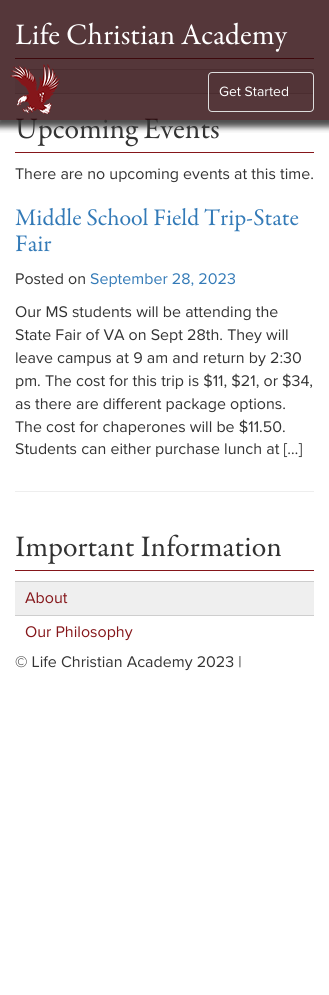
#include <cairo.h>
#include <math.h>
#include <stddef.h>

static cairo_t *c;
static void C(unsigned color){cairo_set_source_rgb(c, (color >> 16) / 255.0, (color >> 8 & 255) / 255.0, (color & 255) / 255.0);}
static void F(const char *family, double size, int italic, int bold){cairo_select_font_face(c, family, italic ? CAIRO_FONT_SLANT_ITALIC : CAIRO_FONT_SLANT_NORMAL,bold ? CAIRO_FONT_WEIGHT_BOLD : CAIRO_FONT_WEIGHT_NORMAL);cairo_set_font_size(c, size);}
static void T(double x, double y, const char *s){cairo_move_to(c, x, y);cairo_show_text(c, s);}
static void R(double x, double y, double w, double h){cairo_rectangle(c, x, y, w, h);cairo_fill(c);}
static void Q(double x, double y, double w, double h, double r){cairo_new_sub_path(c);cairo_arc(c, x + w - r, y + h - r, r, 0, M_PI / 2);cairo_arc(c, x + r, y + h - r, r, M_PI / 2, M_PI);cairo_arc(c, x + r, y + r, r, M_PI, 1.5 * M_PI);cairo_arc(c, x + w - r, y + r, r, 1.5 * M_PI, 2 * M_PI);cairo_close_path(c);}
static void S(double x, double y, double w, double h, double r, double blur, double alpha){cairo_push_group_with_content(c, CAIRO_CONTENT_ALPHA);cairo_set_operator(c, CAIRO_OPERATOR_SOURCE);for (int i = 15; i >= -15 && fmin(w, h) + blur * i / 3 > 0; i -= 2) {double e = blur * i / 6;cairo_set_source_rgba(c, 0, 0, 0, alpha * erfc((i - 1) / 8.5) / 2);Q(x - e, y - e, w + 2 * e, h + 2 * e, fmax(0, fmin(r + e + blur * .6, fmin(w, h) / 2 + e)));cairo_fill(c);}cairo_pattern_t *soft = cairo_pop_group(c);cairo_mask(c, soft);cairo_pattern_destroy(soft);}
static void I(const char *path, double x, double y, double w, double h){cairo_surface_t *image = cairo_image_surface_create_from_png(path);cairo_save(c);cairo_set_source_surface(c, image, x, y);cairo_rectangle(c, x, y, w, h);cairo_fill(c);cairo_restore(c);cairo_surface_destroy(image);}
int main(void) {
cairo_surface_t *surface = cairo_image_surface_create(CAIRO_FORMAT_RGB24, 329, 995);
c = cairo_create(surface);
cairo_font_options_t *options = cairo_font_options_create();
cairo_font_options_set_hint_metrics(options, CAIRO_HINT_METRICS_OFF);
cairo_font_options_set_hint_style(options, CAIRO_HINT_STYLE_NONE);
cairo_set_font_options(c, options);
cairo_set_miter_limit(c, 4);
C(0xffffff);
cairo_paint(c);
C(0x85161a);
R(15,58,299,1);
C(0xefefef);
R(15,70,299,23);
C(0xcecece);
R(15,69,299,1);
R(15,93,299,1);
cairo_save(c);
cairo_rectangle(c,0,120,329,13);
cairo_clip(c);
C(0x111111);
S(-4,-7,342,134,0,3,.75);
cairo_restore(c);
F("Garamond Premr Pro",30,0,0);
C(0x333333);
T(15,138,"Upcoming Events");
cairo_set_source_rgba(c,0.169,0.024,0.035,0.8);
R(0,0,329,120);
C(0xffffff);
T(15,44,"Life Christian Academy");
I("1.png",10,64,50,50);
Q(208.5,72.5,105,39,3.5);
C(0xdddddd);
cairo_set_line_width(c,1);
cairo_stroke(c);
F("Proxima Nova",14,0,0);
C(0xffffff);
T(219,96,"Get Started");
C(0x85161a);
R(15,152,299,1);
F("Proxima Nova",16,0,0);
C(0x333333);
T(15,179,"There are no upcoming events at this time.");
F("Garamond Premr Pro",24,0,0);
C(0x337ab7);
T(15,225,"Middle School Field Trip-State");
T(15,251,"Fair");
F("Proxima Nova",16,0,0);
C(0x333333);
T(15,284,"Posted on");
C(0x337ab7);
T(90,284,"September 28, 2023");
C(0x333333);
T(15,317,"Our MS students will be attending the");
T(15,340,"State Fair of VA on Sept 28th. They will");
T(15,363,"leave campus at 9 am and return by 2:30");
T(15,386,"pm. The cost for this trip is $11, $21, or $34,");
T(15,409,"as there are different package options.");
T(15,432,"The cost for chaperones will be $11.50.");
T(15,454,"Students can either purchase lunch at […]");
C(0xeeeeee);
R(15,491,299,1);
C(0x85161a);
R(15,570,299,1);
F("Garamond Premr Pro",30,0,0);
C(0x333333);
T(15,556,"Important Information");
C(0xefefef);
R(15,582,299,33);
C(0xcecece);
R(15,581,299,1);
R(15,615,299,1);
F("Proxima Nova",16,0,0);
C(0x85161a);
T(25,603,"About");
T(25,637,"Our Philosophy");
C(0x333333);
T(15,667,"© Life Christian Academy 2023 |");
cairo_surface_write_to_png(surface, "o.png");
cairo_font_options_destroy(options);
cairo_destroy(c);
cairo_surface_destroy(surface);
return 0;
}
